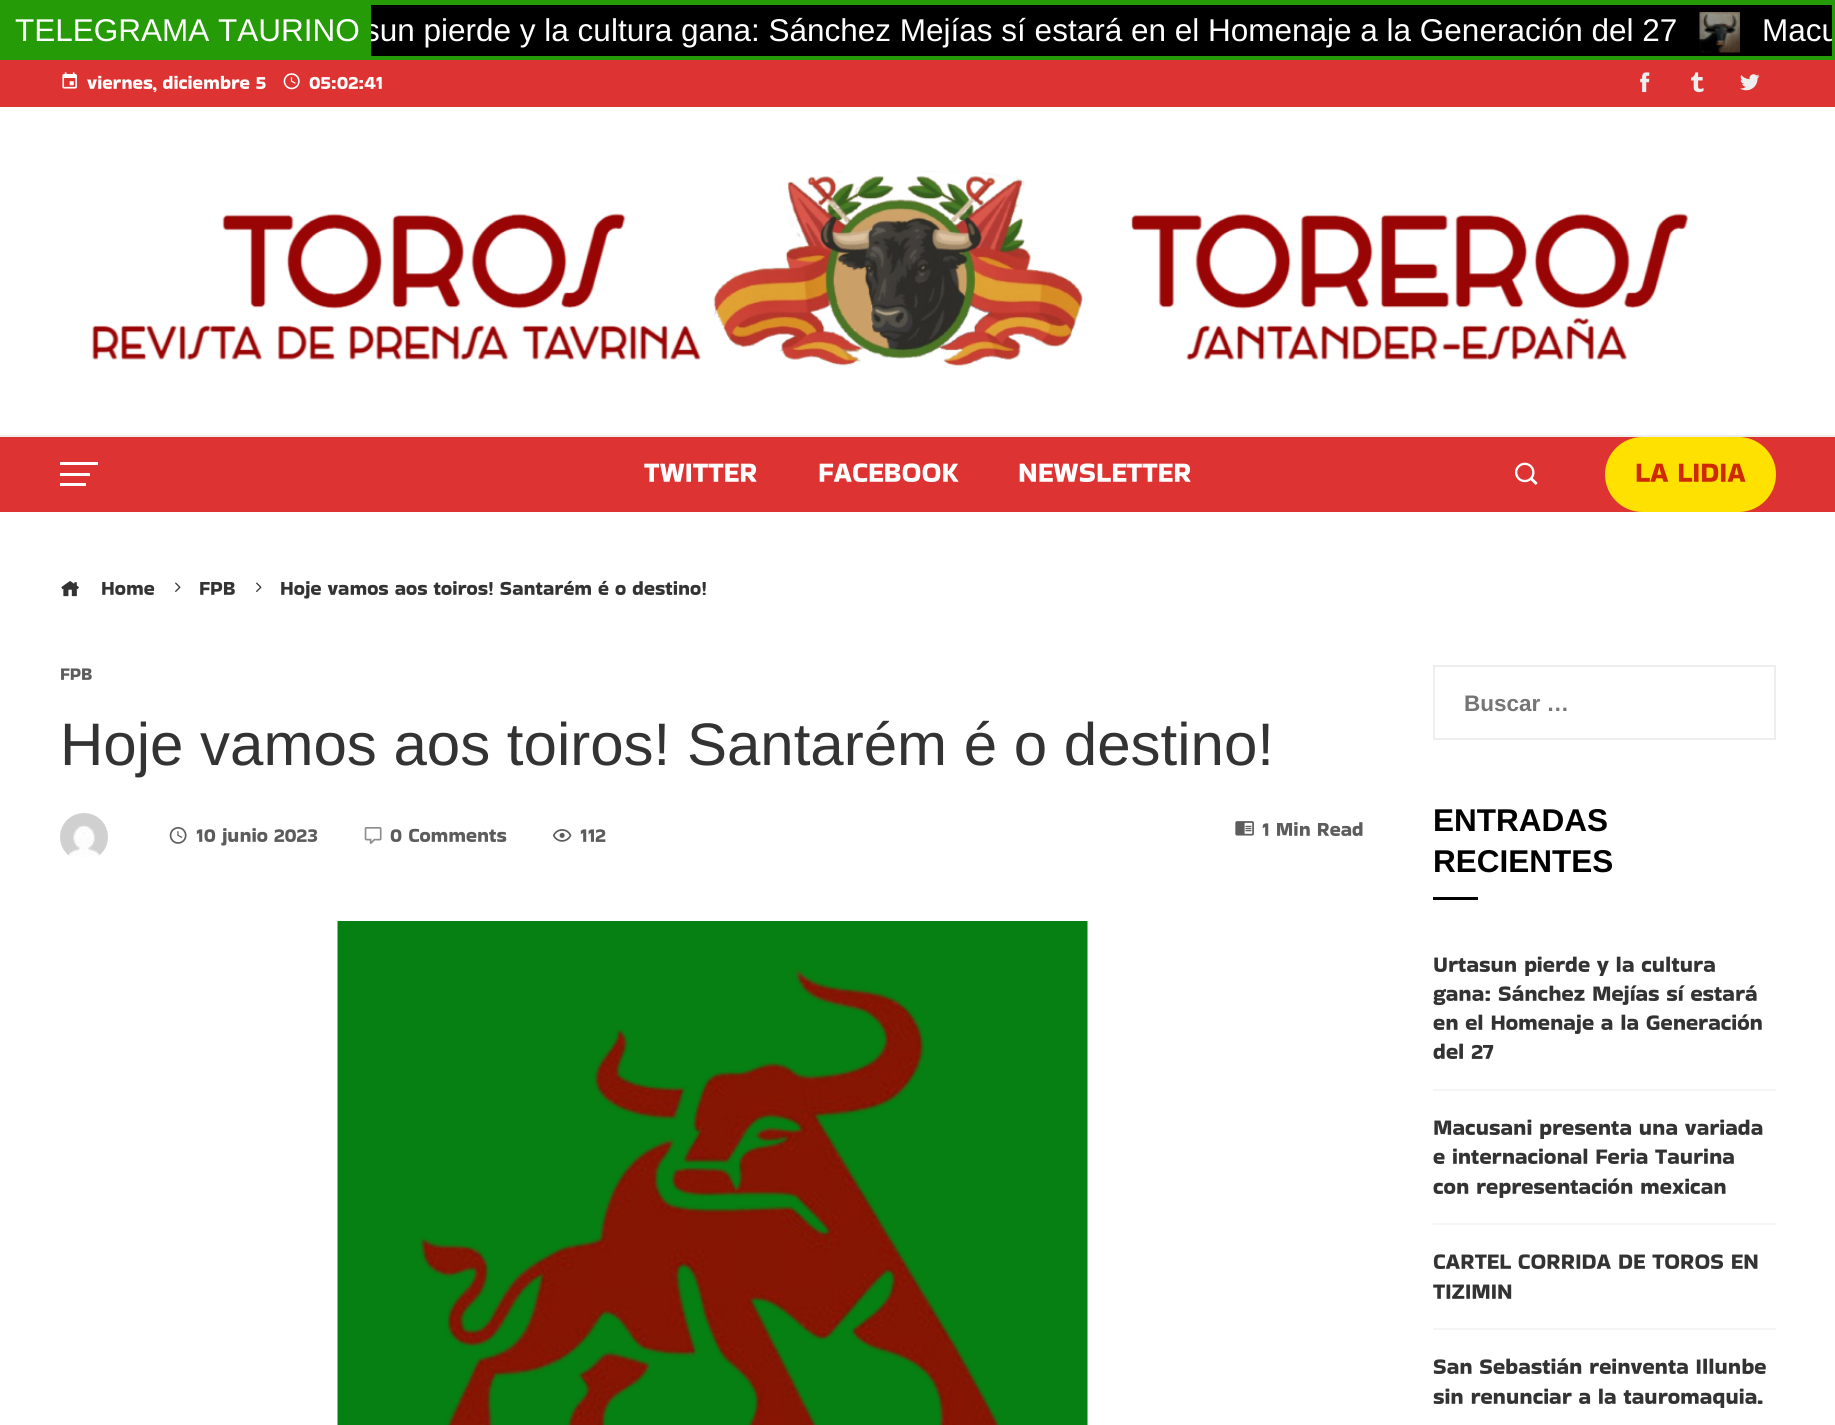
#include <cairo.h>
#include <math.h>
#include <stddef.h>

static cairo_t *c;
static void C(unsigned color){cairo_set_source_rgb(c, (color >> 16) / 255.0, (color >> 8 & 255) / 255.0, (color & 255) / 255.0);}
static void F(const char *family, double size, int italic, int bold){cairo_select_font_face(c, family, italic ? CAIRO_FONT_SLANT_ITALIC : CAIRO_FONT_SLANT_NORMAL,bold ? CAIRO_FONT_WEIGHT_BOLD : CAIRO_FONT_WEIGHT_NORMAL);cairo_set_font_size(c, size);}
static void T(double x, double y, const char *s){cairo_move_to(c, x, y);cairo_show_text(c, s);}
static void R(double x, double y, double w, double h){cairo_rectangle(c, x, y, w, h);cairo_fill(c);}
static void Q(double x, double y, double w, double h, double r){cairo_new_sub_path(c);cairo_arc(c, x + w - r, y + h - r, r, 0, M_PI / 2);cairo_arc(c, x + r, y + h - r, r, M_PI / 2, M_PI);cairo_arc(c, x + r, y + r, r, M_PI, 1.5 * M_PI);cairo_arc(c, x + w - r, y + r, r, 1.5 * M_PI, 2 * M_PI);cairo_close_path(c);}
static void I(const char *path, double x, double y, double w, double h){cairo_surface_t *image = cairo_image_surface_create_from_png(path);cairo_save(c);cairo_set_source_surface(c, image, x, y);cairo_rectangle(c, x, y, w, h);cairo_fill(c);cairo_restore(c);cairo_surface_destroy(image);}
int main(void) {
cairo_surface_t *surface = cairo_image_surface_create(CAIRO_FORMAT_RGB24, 1835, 1425);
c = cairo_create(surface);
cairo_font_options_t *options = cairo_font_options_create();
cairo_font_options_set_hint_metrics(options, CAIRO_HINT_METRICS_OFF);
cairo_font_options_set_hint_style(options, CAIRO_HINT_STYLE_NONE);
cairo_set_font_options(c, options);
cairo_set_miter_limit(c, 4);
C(0xffffff);
cairo_paint(c);
C(0x259b07);
R(0,0,1835,60);
F("Liberation Sans",31.5,0,0);
C(0xffffff);
T(15,41,"TELEGRAMA TAURINO");
C(0x000000);
R(371,5,1461,51);
cairo_save(c);
cairo_rectangle(c,371,5,1461,51);
cairo_clip(c);
C(0xffffff);
T(364,41,"sun pierde y la cultura gana: Sánchez Mejías sí estará en el Homenaje a la Generación del 27");
cairo_restore(c);
I("1.png",1699,12,41,41);
cairo_save(c);
cairo_rectangle(c,371,5,1461,51);
cairo_clip(c);
C(0xffffff);
T(1762,41,"Macu");
cairo_restore(c);
C(0xdd3333);
R(0,60,1835,47);
I("2.png",62,72,15,17);
F("Bakbak One",19.25,0,0);
C(0xffffff);
T(87,89,"viernes, diciembre 5");
I("3.png",283,73,17,17);
T(309,89,"05:02:41");
I("4.png",1640,72,10,21);
I("5.png",1691,72,13,21);
I("6.png",1740,74,20,17);
I("7.png",92,171,1597,195);
C(0xdd3333);
R(0,437,1835,75);
C(0xeeeeee);
R(0,435,1835,2);
C(0xffffff);
R(60,462,38,3);
R(60,473,30,3);
R(60,483,26,3);
F("Bakbak One",28.5,0,0);
T(644,482,"TWITTER");
T(818,482,"FACEBOOK");
T(1018,482,"NEWSLETTER");
I("8.png",1515,462,23,23);
C(0xffe100);
Q(1605,437,171,75,37.5);
cairo_fill(c);
C(0xce2900);
T(1635,482,"LA LIDIA");
I("9.png",61,581,18,16);
F("Bakbak One",20.25,0,0);
C(0x333333);
T(101,595,"Home");
I("10.png",175,582,6,10);
T(199,595,"FPB");
I("10.png",256,582,6,10);
T(280,595,"Hoje vamos aos toiros! Santarém é o destino!");
F("Bakbak One",18,0,0);
C(0x5c5c5c);
T(60,680,"FPB");
F("Liberation Sans",60,0,0);
C(0x333333);
T(60,765,"Hoje vamos aos toiros! Santarém é o destino!");
I("11.png",60,813,48,44);
I("12.png",169,827,18,17);
F("Bakbak One",20.25,0,0);
C(0x5c5c5c);
T(196,842,"10 junio 2023");
I("13.png",364,827,18,17);
T(390,842,"0 Comments");
I("14.png",552,829,20,13);
T(580,842,"112");
I("15.png",1235,821,19,15);
T(1262,836,"1 Min Read");
I("16.png",337,921,751,504);
cairo_rectangle(c,1434,666,341,73);
C(0xeeeeee);
cairo_stroke(c);
F("Liberation Sans",22.5,0,1);
C(0x757575);
T(1464,711,"Buscar …");
F("Liberation Sans",31.5,0,1);
C(0x000000);
T(1433,831,"ENTRADAS");
T(1433,872,"RECIENTES");
R(1433,897,45,3);
C(0xf5f5f5);
R(1433,1089,343,2);
F("Bakbak One",22.5,0,0);
C(0x333333);
T(1433,972,"Urtasun pierde y la cultura");
T(1433,1001,"gana: Sánchez Mejías sí estará");
T(1433,1030,"en el Homenaje a la Generación");
T(1433,1059,"del 27");
C(0xf5f5f5);
R(1433,1223,343,2);
C(0x333333);
T(1433,1135,"Macusani presenta una variada");
T(1433,1164,"e internacional Feria Taurina");
T(1433,1194,"con representación mexican");
C(0xf5f5f5);
R(1433,1328,343,2);
C(0x333333);
T(1433,1269,"CARTEL CORRIDA DE TOROS EN");
T(1433,1299,"TIZIMIN");
T(1433,1374,"San Sebastián reinventa Illunbe");
T(1433,1404,"sin renunciar a la tauromaquia.");
cairo_surface_write_to_png(surface, "o.png");
cairo_font_options_destroy(options);
cairo_destroy(c);
cairo_surface_destroy(surface);
return 0;
}
